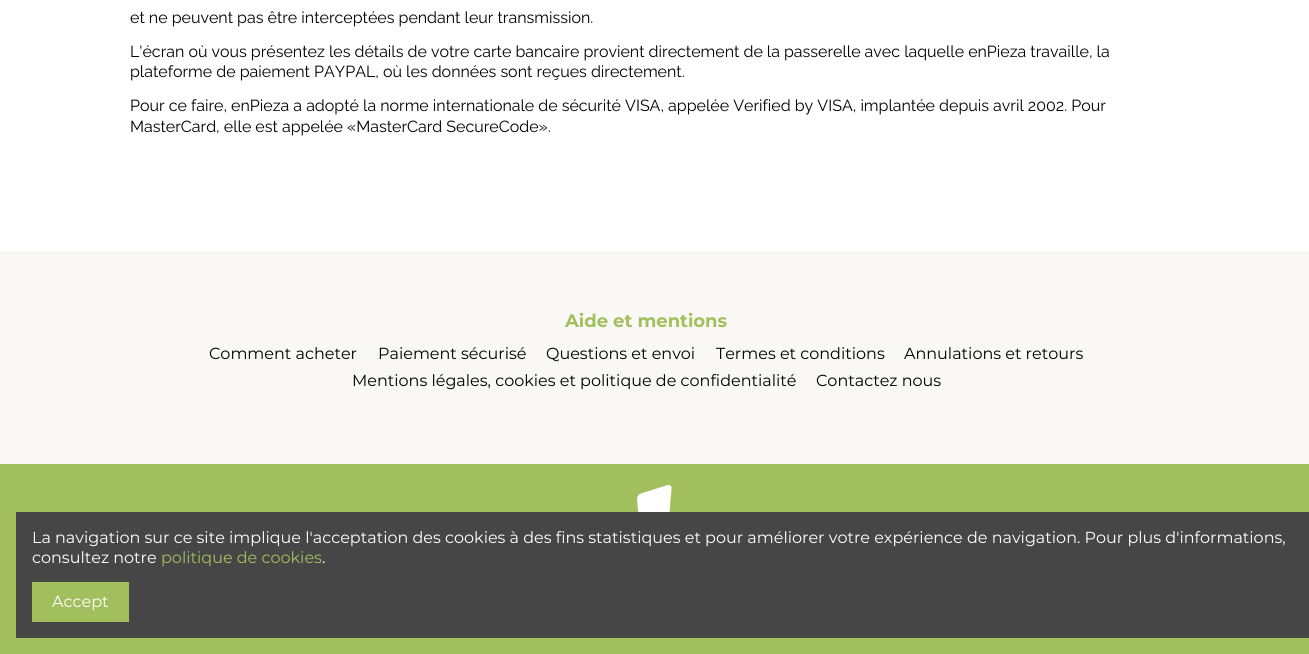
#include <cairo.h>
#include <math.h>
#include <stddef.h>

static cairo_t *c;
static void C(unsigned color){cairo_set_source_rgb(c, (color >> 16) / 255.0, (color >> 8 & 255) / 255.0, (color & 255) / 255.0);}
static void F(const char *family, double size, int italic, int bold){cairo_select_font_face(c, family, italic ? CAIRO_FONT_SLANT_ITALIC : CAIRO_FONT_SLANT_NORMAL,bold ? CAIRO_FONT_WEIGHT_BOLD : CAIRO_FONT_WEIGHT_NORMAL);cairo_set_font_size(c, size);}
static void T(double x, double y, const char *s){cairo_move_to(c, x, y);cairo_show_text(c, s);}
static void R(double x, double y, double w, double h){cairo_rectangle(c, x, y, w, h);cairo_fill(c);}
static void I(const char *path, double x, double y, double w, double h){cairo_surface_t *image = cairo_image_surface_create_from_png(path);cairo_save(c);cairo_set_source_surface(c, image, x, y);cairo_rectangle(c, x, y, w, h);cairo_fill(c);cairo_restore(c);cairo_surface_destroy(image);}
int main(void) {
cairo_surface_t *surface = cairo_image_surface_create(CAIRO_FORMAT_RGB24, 1309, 654);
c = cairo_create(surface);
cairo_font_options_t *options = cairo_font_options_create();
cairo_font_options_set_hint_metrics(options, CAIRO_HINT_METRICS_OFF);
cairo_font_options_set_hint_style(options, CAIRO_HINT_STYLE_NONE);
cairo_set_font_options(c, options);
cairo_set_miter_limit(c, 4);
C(0xffffff);
cairo_paint(c);
F("Raleway",16,0,0);
C(0x000000);
T(130,23,"et ne peuvent pas être interceptées pendant leur transmission.");
T(130,57,"L'écran où vous présentez les détails de votre carte bancaire provient directement de la passerelle avec laquelle enPieza travaille, la");
T(130,77,"plateforme de paiement PAYPAL, où les données sont reçues directement.");
T(130,111,"Pour ce faire, enPieza a adopté la norme internationale de sécurité VISA, appelée Verified by VISA, implantée depuis avril 2002. Pour");
T(130,132,"MasterCard, elle est appelée «MasterCard SecureCode».");
C(0xf9f8f4);
R(0,251,1309,213);
F("Montserrat",18,0,1);
C(0xa2bf5e);
T(565,327,"Aide et mentions");
F("Montserrat",16,0,0);
C(0x000000);
T(209,359,"Comment acheter");
T(378,359,"Paiement sécurisé");
T(546,359,"Questions et envoi");
T(716,359,"Termes et conditions");
T(904,359,"Annulations et retours");
T(352,386,"Mentions légales, cookies et politique de confidentialité");
T(816,386,"Contactez nous");
C(0xa2bf5e);
R(0,464,1309,190);
I("1.png",637,485,35,27);
C(0x464646);
R(16,512,1293,126);
C(0xffffff);
T(32,543,"La navigation sur ce site implique l'acceptation des cookies à des fins statistiques et pour améliorer votre expérience de navigation. Pour plus d'informations,");
T(32,563,"consultez notre");
C(0xa2bf5e);
T(161,563,"politique de cookies");
C(0xffffff);
T(322,563,".");
C(0xa2bf5e);
R(32,582,97,40);
C(0xffffff);
T(52,607,"Accept");
cairo_surface_write_to_png(surface, "o.png");
cairo_font_options_destroy(options);
cairo_destroy(c);
cairo_surface_destroy(surface);
return 0;
}
